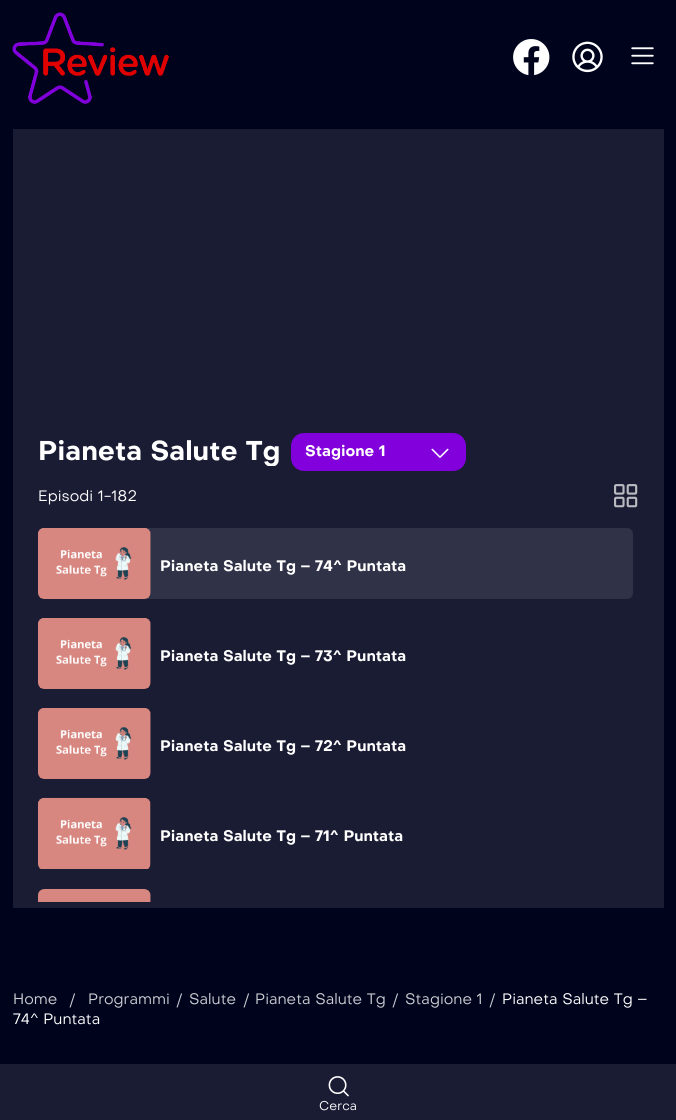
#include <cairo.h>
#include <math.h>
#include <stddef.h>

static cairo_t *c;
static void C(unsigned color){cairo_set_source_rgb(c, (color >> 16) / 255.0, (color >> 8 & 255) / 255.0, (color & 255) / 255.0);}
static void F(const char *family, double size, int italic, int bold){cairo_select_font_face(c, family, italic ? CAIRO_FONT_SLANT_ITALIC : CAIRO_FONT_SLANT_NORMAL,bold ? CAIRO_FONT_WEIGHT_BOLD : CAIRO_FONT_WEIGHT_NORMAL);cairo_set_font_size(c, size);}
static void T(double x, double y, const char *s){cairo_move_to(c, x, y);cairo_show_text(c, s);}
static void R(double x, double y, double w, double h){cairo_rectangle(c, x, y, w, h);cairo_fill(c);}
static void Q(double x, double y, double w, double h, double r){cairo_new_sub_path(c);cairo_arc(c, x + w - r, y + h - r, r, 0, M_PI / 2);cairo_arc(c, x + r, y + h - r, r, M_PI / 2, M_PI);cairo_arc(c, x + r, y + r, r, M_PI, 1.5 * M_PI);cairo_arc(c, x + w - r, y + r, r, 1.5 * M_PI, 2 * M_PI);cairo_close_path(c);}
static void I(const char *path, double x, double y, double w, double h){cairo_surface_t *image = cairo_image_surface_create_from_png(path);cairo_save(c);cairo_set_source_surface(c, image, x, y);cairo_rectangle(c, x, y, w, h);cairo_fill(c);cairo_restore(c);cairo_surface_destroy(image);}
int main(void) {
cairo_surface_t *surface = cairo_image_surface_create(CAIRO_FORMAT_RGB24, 676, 1120);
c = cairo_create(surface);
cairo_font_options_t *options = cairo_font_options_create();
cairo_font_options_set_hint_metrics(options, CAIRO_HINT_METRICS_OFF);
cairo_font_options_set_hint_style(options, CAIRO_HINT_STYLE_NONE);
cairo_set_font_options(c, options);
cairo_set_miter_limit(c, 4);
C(0x00031c);
cairo_paint(c);
I("1.png",12,12,157,92);
I("2.png",513,39,37,37);
I("3.png",572,41,31,32);
I("4.png",631,47,23,18);
C(0x191c33);
R(13,129,651,779);
cairo_save(c);
cairo_rectangle(c,38,436,241,30);
cairo_clip(c);
F("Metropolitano",26.75,0,1);
C(0xffffff);
T(38,460,"Pianeta Salute Tg");
cairo_restore(c);
C(0x8100db);
Q(291,433,175,38,13);
cairo_fill(c);
F("Metropolitano",15,0,1);
C(0xffffff);
T(305,456,"Stagione 1");
I("5.png",431,448,18,10);
F("Metropolitano",15,0,0);
T(38,501,"Episodi 1-182");
I("6.png",614,484,24,24);
C(0x303347);
Q(38,528,595,71,6);
cairo_fill(c);
I("7.png",38,528,113,71);
F("Metropolitano",15,0,1);
C(0xffffff);
T(160,571,"Pianeta Salute Tg – 74^ Puntata");
I("8.png",38,618,113,71);
T(160,661,"Pianeta Salute Tg – 73^ Puntata");
I("8.png",38,708,113,71);
T(160,751,"Pianeta Salute Tg – 72^ Puntata");
I("9.png",38,797,113,72);
T(160,841,"Pianeta Salute Tg – 71^ Puntata");
I("10.png",38,889,113,13);
F("Metropolitano",15,0,0);
C(0xcccdd2);
T(13,1004,"Home");
T(69,1004,"/");
T(88,1004,"Programmi");
T(176,1004,"/");
T(189,1004,"Salute");
T(243,1004,"/");
T(255,1004,"Pianeta Salute Tg");
T(392,1004,"/");
T(405,1004,"Stagione 1");
T(489,1004,"/");
C(0xffffff);
T(502,1004,"Pianeta Salute Tg –");
T(13,1024,"74^ Puntata");
C(0x191c33);
R(0,1064,676,56);
I("11.png",328,1076,21,21);
F("Metropolitano",12.5,0,0);
C(0xffffff);
T(319,1110,"Cerca");
cairo_surface_write_to_png(surface, "o.png");
cairo_font_options_destroy(options);
cairo_destroy(c);
cairo_surface_destroy(surface);
return 0;
}
